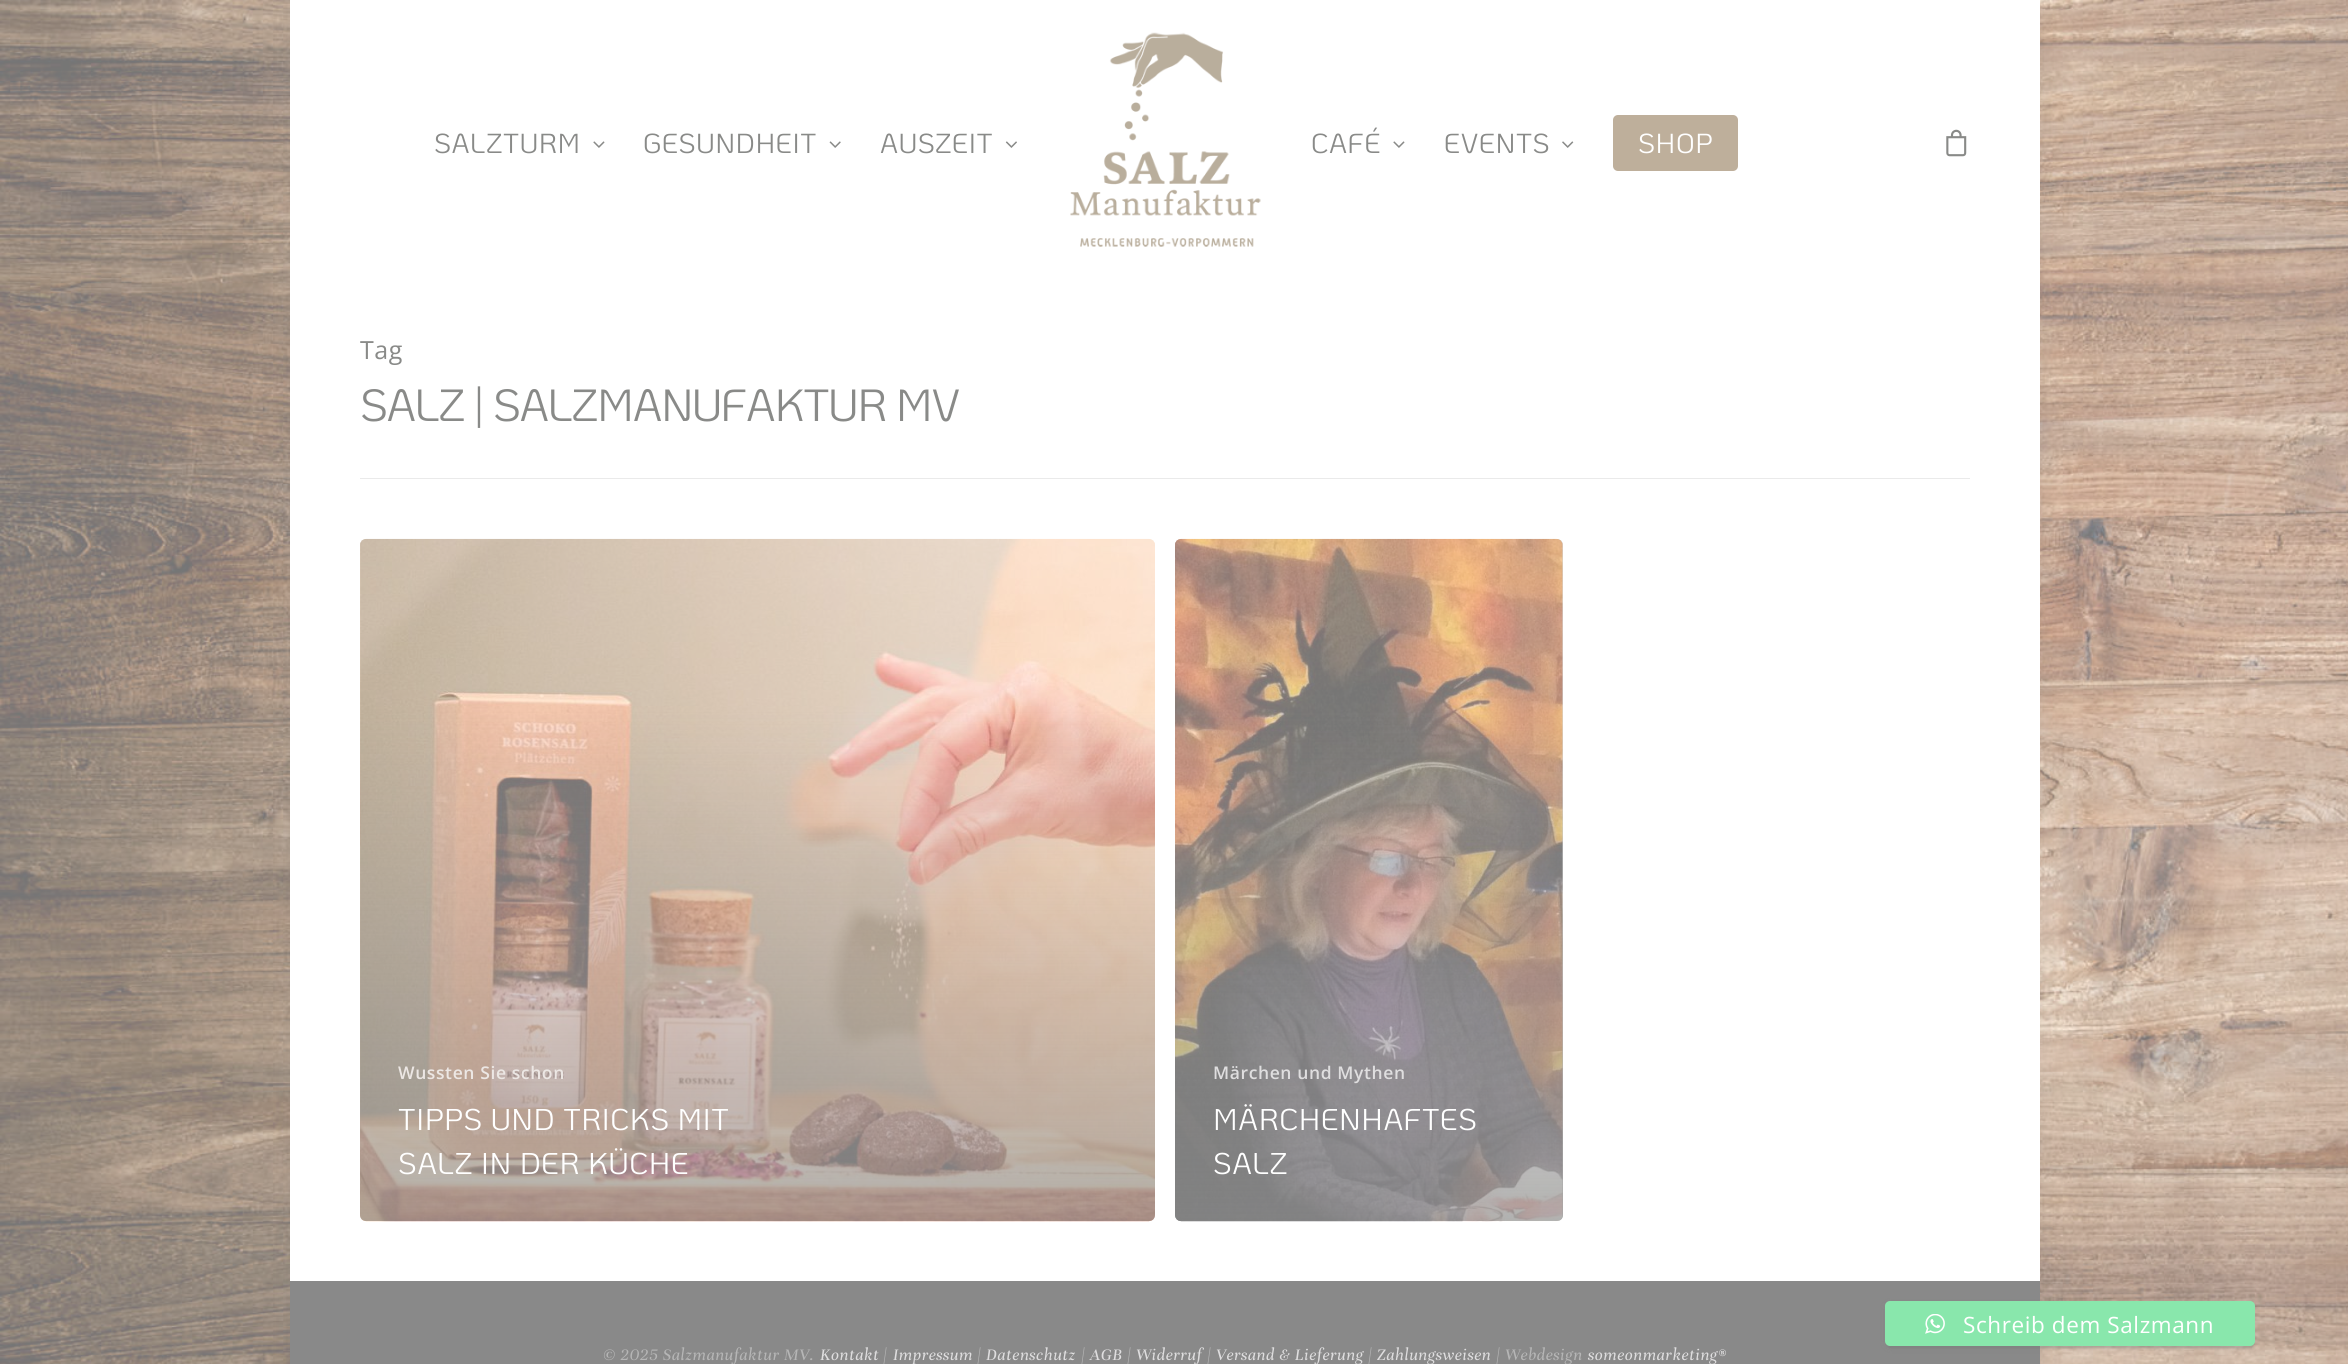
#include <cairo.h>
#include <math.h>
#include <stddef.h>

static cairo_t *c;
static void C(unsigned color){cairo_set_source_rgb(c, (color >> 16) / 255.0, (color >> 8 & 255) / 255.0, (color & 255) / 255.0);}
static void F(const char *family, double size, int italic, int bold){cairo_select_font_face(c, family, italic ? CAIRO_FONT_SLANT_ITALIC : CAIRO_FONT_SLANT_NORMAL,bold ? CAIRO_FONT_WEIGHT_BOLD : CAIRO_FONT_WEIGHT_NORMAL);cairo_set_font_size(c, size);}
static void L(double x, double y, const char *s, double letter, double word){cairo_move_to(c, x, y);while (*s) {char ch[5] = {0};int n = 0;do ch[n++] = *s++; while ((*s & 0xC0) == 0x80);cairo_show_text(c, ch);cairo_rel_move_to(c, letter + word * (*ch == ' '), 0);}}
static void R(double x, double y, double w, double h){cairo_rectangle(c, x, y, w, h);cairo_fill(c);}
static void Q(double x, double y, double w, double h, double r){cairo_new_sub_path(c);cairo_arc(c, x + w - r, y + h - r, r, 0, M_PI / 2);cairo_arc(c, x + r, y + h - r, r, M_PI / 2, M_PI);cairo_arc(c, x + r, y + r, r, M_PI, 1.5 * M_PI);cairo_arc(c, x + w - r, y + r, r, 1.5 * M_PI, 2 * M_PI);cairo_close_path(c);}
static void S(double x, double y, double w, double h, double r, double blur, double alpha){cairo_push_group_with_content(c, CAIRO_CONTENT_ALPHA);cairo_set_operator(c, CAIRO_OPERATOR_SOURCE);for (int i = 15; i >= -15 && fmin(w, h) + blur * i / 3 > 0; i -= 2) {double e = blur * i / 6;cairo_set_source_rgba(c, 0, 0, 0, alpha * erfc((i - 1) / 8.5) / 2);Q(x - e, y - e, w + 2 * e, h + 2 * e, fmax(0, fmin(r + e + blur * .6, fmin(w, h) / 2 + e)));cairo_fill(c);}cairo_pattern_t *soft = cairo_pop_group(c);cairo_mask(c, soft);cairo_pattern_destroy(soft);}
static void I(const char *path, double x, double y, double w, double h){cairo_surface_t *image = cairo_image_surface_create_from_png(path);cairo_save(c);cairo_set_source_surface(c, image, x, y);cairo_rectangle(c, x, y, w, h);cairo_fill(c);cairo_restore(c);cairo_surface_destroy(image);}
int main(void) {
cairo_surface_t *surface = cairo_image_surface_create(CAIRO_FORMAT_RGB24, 2348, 1364);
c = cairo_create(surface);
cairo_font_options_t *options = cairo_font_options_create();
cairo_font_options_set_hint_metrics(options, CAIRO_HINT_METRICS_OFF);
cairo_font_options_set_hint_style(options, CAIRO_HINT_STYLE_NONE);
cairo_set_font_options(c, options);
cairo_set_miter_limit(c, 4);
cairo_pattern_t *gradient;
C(0xffffff);
cairo_paint(c);
I("1.png",0,0,2348,1364);
C(0x757575);
S(290,-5,1750,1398,0,9.5,.15);
C(0xffffff);
R(290,0,1750,290);
I("2.png",1070,32,191,215);
F("KoHo",27.5,0,0);
C(0x898a88);
L(434,153,"SALZTURM",.6,0);
I("3.png",593,141,12,7);
L(643,153,"GESUNDHEIT",.6,0);
I("4.png",829,141,12,7);
L(880,153,"AUSZEIT",.6,0);
I("5.png",1005,141,12,7);
L(1311,153,"CAFÉ",.6,0);
I("3.png",1393,141,12,7);
L(1444,153,"EVENTS",.6,0);
I("6.png",1562,141,12,7);
C(0xbeaf9b);
Q(1613,115,125,56,5);
cairo_fill(c);
C(0xffffff);
L(1638,153,"SHOP",.6,0);
I("7.png",1946,129,21,28);
R(290,290,1750,991);
C(0xeaeaea);
R(360,478,1610,1);
F("Open Sans",25,0,0);
C(0x898a88);
L(360,359,"Tag",.6,0);
F("KoHo",45,0,0);
L(360,421,"SALZ | SALZMANUFAKTUR MV",-1.25,0);
I("8.png",360,538,795,684);
gradient = cairo_pattern_create_linear(759,710,759,1225);
cairo_pattern_add_color_stop_rgba(gradient,0,0.533,0.533,0.533,0);
cairo_pattern_add_color_stop_rgba(gradient,1,0.533,0.533,0.533,.65);
cairo_set_source(c,gradient);
cairo_pattern_destroy(gradient);
cairo_new_path(c);
cairo_move_to(c,360,710);
cairo_line_to(c,1155,710);
cairo_line_to(c,1155,1215);
cairo_curve_to(c,1155,1218.5,1152.5,1221,1149,1221);
cairo_line_to(c,366,1221);
cairo_curve_to(c,362.5,1221,360,1218.5,360,1215);
cairo_close_path(c);
cairo_fill(c);
F("Open Sans SemiBold",17.5,0,0);
C(0xece7e4);
L(398,1079,"Wussten Sie schon",.6,0);
F("KoHo",30,0,0);
C(0xffffff);
L(398,1130,"TIPPS UND TRICKS MIT",.6,0);
L(398,1174,"SALZ IN DER KÜCHE",.6,0);
C(0xd6d6d6);
Q(1175,539,388,682,6);
cairo_fill(c);
I("9.png",1175,538,388,684);
gradient = cairo_pattern_create_linear(1370,710,1370,1225);
cairo_pattern_add_color_stop_rgba(gradient,0,0.533,0.533,0.533,0);
cairo_pattern_add_color_stop_rgba(gradient,1,0.533,0.533,0.533,.65);
cairo_set_source(c,gradient);
cairo_pattern_destroy(gradient);
cairo_new_path(c);
cairo_move_to(c,1175,710);
cairo_line_to(c,1563,710);
cairo_line_to(c,1563,1215);
cairo_curve_to(c,1563,1218.5,1560.5,1221,1557,1221);
cairo_line_to(c,1181,1221);
cairo_curve_to(c,1177.5,1221,1175,1218.5,1175,1215);
cairo_close_path(c);
cairo_fill(c);
F("Open Sans SemiBold",17.5,0,0);
C(0xdfdedf);
L(1213,1079,"Märchen und Mythen",.6,0);
F("KoHo",30,0,0);
C(0xffffff);
L(1213,1130,"MÄRCHENHAFTES",.6,0);
L(1213,1174,"SALZ",.6,0);
C(0x898989);
R(290,1281,1750,83);
F("Unna",17.5,1,0);
C(0xb6b6b6);
L(603,1360,"© 2025 Salzmanufaktur MV.",.6,0);
C(0xdfdedf);
L(820,1360,"Kontakt",.6,0);
C(0xb6b6b6);
L(883,1360,"|",.6,0);
C(0xdfdedf);
L(893,1360,"Impressum",.6,0);
C(0xb6b6b6);
L(977,1360,"|",.6,0);
C(0xdfdedf);
L(986,1360,"Datenschutz",.6,0);
C(0xb6b6b6);
L(1081,1360,"|",.6,0);
C(0xdfdedf);
L(1090,1360,"AGB",.6,0);
C(0xb6b6b6);
L(1127,1360,"|",.6,0);
C(0xdfdedf);
L(1136,1360,"Widerruf",.6,0);
C(0xb6b6b6);
L(1207,1360,"|",.6,0);
C(0xdfdedf);
L(1216,1360,"Versand & Lieferung",.6,0);
C(0xb6b6b6);
L(1368,1360,"|",.6,0);
C(0xdfdedf);
L(1377,1360,"Zahlungsweisen",.6,0);
C(0xb6b6b6);
L(1496,1360,"| Webdesign",.6,0);
C(0xdfdedf);
L(1588,1360,"someonmarketing®",.6,0);
C(0x757575);
S(1888,1308,365,40,2.5,.5,.2);
S(1885,1303,370,45,5,3,.12);
S(1885,1304,370,45,5,1,.14);
C(0x89e7ac);
Q(1885,1301,370,45,5);
cairo_fill(c);
I("10.png",1925,1314,20,20);
F("Open Sans",22.5,0,0);
C(0xffffff);
L(1963,1333,"Schreib dem Salzmann",.6,0);
cairo_surface_write_to_png(surface, "o.png");
cairo_font_options_destroy(options);
cairo_destroy(c);
cairo_surface_destroy(surface);
return 0;
}
